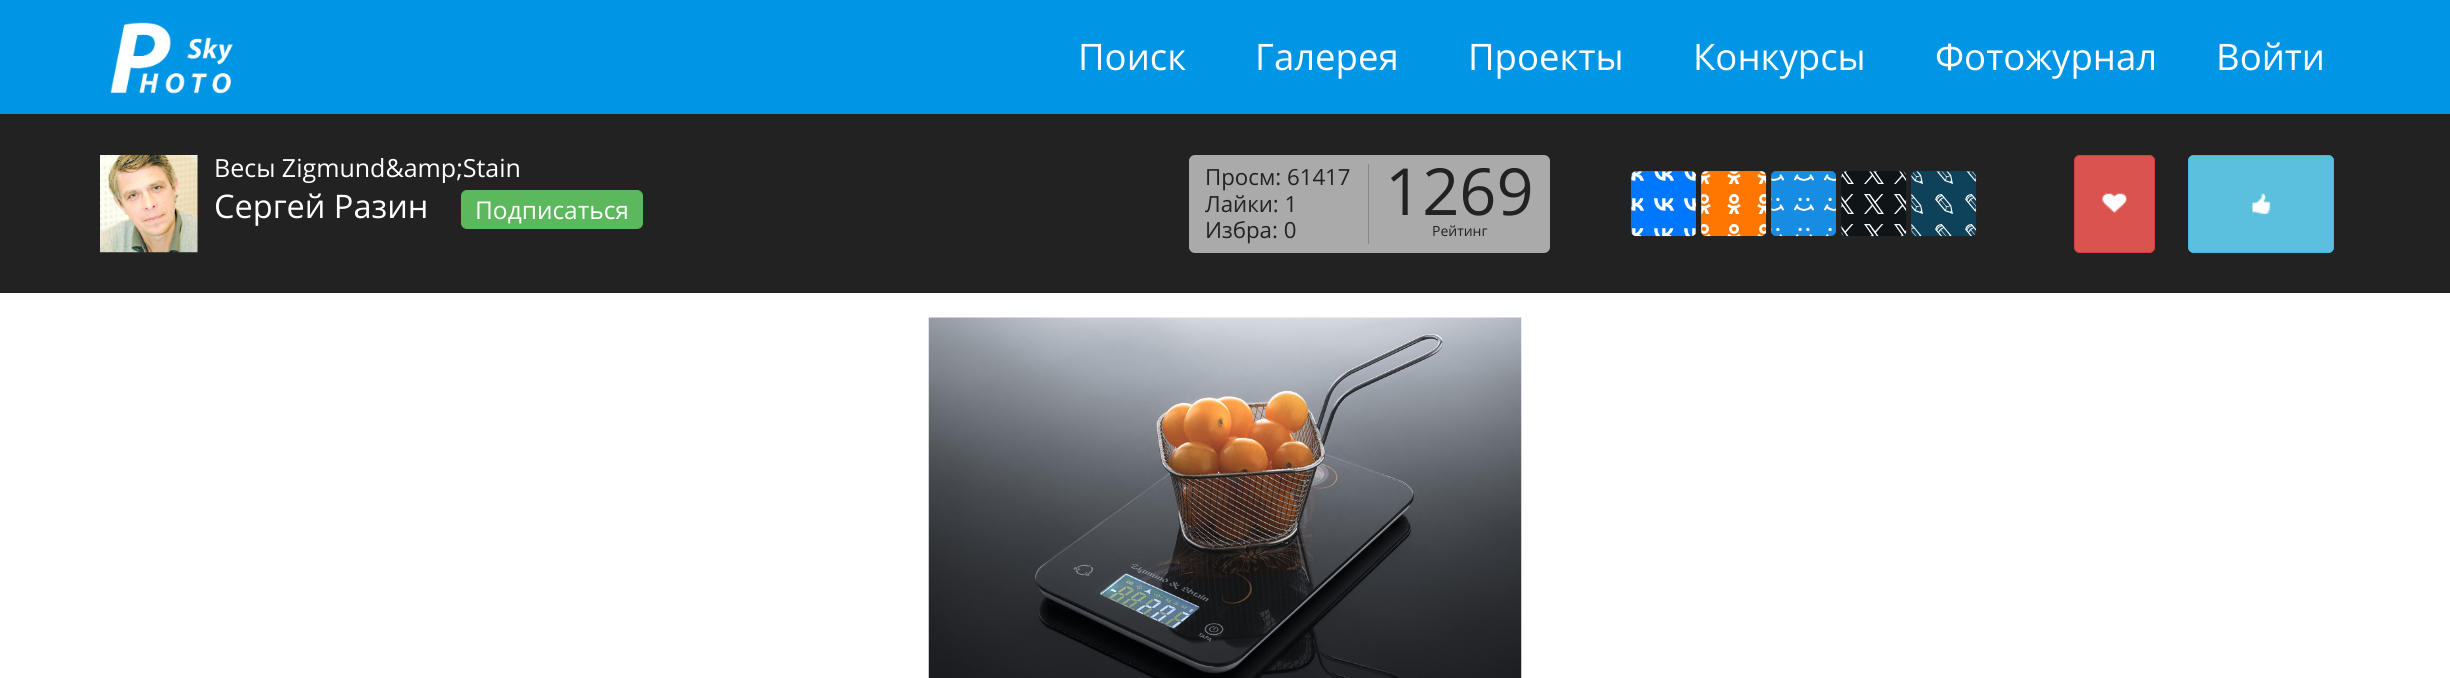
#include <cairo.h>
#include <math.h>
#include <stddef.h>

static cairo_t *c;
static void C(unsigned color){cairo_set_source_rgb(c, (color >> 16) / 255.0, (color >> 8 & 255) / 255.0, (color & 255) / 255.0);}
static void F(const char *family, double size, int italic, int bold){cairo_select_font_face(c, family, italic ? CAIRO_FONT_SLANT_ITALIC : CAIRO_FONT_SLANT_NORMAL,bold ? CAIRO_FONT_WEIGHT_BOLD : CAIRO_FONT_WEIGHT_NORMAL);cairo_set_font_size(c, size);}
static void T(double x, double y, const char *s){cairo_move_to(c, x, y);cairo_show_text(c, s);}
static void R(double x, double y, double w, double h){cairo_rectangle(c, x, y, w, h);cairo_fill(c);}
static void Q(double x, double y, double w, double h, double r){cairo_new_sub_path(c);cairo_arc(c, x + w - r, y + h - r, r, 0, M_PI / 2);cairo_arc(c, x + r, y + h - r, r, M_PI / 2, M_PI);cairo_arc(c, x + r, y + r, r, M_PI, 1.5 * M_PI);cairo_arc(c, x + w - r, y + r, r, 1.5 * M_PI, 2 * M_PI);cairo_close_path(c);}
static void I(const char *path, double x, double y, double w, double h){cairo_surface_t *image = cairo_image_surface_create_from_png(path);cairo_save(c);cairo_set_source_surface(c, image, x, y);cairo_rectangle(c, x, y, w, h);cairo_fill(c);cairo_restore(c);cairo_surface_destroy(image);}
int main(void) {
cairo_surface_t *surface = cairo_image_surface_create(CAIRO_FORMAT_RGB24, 2450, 678);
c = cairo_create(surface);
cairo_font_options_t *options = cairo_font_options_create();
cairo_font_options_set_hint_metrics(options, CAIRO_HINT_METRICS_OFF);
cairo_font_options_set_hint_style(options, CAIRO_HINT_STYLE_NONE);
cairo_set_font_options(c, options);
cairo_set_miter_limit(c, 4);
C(0xffffff);
cairo_paint(c);
C(0x0096e5);
R(0,0,2450,114);
I("1.png",110,22,123,72);
F("Open Sans",36.5,0,0);
C(0xffffff);
T(1078,70,"Поиск");
T(1255,70,"Галерея");
T(1468,70,"Проекты");
T(1693,70,"Конкурсы");
T(1935,70,"Фотожурнал");
T(2216,70,"Войти");
C(0x222222);
R(0,114,2450,179);
I("2.png",100,155,98,98);
F("Open Sans",25,0,0);
C(0xffffff);
T(214,177,"Весы Zigmund&amp;Stain");
F("Open Sans",32.5,0,0);
T(214,218,"Сергей Разин");
C(0x5cb85c);
Q(461.5,190.5,181,38,5.5);
cairo_fill_preserve(c);
cairo_set_line_width(c,1);
cairo_stroke(c);
F("Open Sans",24.5,0,0);
C(0xffffff);
T(475,219,"Подписаться");
C(0xaaaaaa);
Q(1189,155,361,98,6);
cairo_fill(c);
F("Open Sans",22.25,0,0);
C(0x222222);
T(1205,185,"Просм: 61417");
T(1205,212,"Лайки: 1");
T(1205,238,"Избра: 0");
C(0x888888);
R(1368,164,1,80);
F("Open Sans",65,0,0);
C(0x222222);
T(1385,215,"1269");
F("Open Sans",14,0,0);
T(1432,236,"Рейтинг");
C(0x0077ff);
Q(1631,171,65,65,5);
cairo_fill(c);
I("3.png",1631,171,66,66);
C(0xff7700);
Q(1701,171,65,65,5);
cairo_fill(c);
I("4.png",1701,171,66,66);
C(0x168de2);
Q(1771,171,65,65,5);
cairo_fill(c);
I("5.png",1771,174,66,63);
C(0x0f1419);
Q(1841,171,65,65,5);
cairo_fill(c);
I("6.png",1841,171,66,66);
C(0x0d425a);
Q(1911,171,65,65,5);
cairo_fill(c);
I("7.png",1911,171,66,66);
C(0xd9534f);
Q(2074,155,81,98,6);
cairo_fill(c);
I("8.png",2102,193,25,20);
Q(2074.5,155.5,80,97,5.5);
C(0xd43f3a);
cairo_stroke(c);
C(0x5bc0de);
Q(2188,155,146,98,6);
cairo_fill(c);
I("9.png",2252,193,19,21);
Q(2188.5,155.5,145,97,5.5);
C(0x46b8da);
cairo_stroke(c);
I("10.png",928,317,594,361);
cairo_surface_write_to_png(surface, "o.png");
cairo_font_options_destroy(options);
cairo_destroy(c);
cairo_surface_destroy(surface);
return 0;
}
